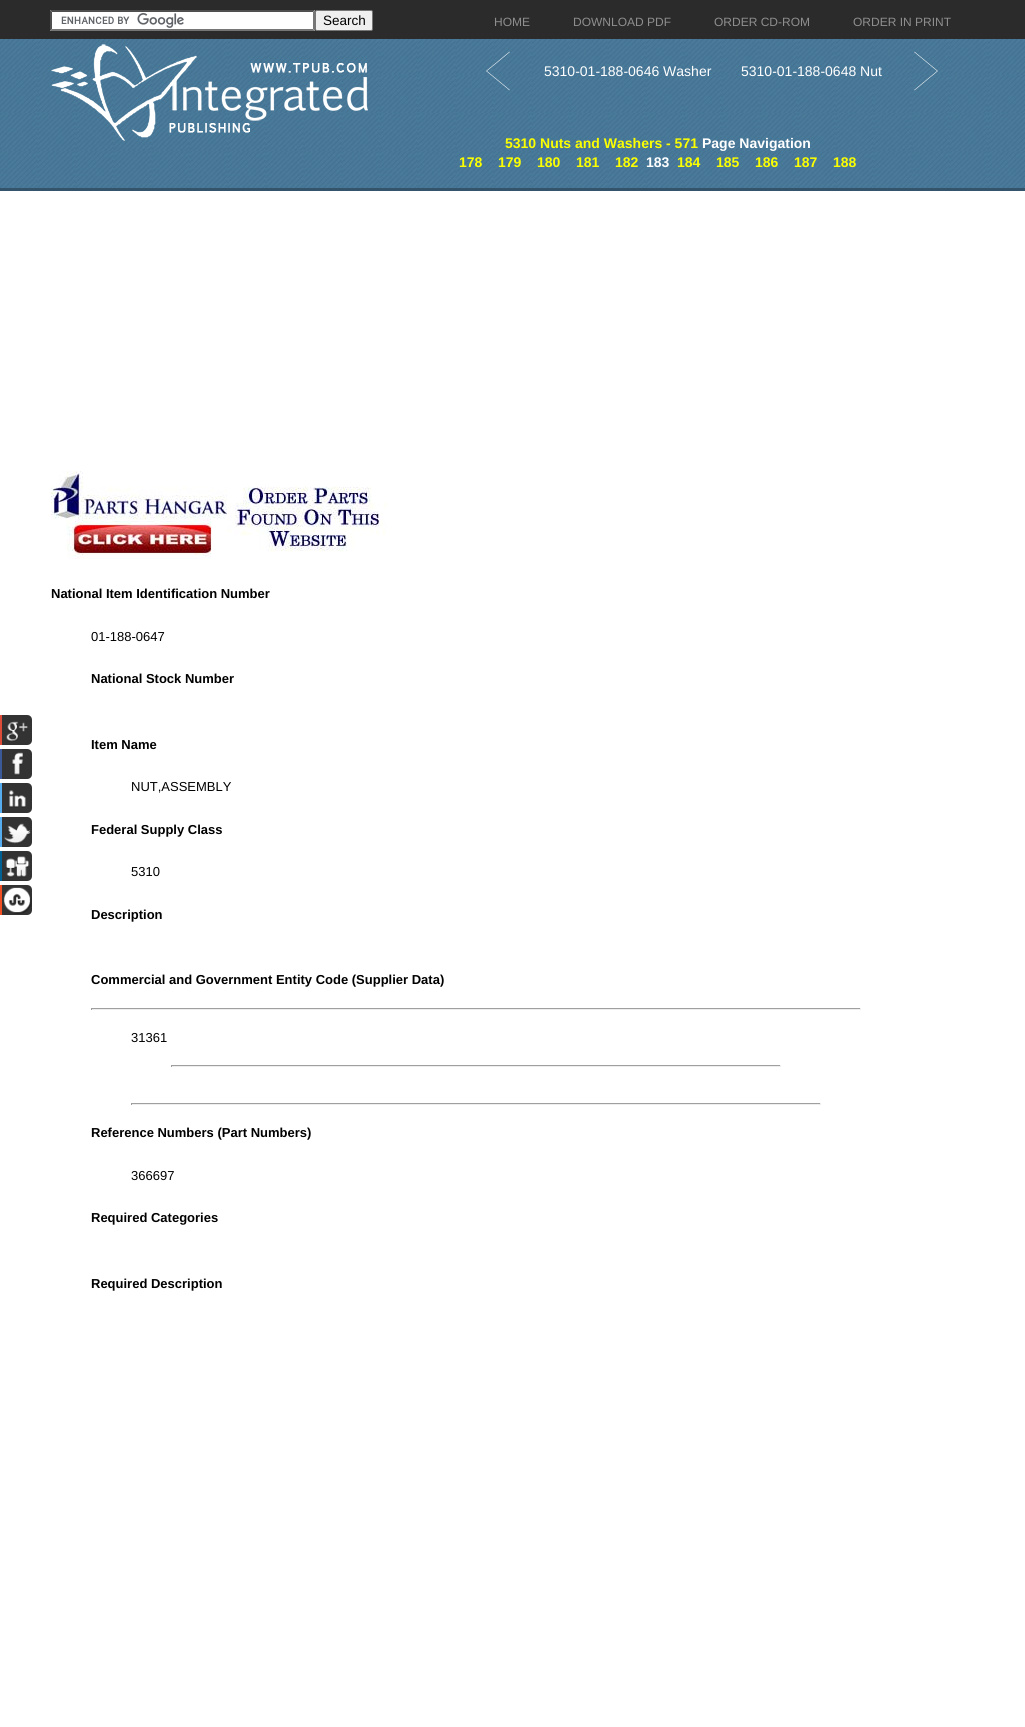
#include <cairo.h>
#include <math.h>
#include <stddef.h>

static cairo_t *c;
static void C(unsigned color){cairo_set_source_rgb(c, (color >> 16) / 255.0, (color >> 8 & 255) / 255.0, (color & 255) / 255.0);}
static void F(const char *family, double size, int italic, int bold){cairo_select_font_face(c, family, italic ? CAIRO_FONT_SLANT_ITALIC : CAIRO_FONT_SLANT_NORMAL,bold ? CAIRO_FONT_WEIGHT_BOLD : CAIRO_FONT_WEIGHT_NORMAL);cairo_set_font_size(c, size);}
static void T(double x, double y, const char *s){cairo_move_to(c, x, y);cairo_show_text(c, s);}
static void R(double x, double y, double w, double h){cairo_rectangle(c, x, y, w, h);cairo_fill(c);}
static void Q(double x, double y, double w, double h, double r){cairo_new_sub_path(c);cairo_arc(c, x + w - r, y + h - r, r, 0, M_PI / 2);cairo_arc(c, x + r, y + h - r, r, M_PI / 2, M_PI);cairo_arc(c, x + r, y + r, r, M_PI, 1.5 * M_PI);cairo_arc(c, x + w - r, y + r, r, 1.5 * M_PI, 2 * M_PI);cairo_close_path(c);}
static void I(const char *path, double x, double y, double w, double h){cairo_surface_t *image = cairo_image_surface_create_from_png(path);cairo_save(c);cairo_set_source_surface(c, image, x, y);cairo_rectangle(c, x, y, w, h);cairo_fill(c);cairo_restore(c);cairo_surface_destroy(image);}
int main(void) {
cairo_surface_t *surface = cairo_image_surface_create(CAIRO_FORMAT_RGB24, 1025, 1727);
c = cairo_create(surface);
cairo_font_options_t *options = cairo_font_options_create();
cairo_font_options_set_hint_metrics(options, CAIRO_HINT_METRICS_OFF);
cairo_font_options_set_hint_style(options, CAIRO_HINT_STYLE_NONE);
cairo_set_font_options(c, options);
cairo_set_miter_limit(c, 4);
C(0xffffff);
cairo_paint(c);
C(0xdd4b39);
cairo_new_path(c);
cairo_move_to(c,-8,715);
cairo_line_to(c,24,715);
cairo_curve_to(c,28.5,715,32,718.5,32,723);
cairo_line_to(c,32,737);
cairo_curve_to(c,32,741.5,28.5,745,24,745);
cairo_line_to(c,-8,745);
cairo_close_path(c);
cairo_fill(c);
C(0x333333);
cairo_new_path(c);
cairo_move_to(c,2,715);
cairo_line_to(c,27,715);
cairo_curve_to(c,30,715,32,717,32,720);
cairo_line_to(c,32,740);
cairo_curve_to(c,32,743,30,745,27,745);
cairo_line_to(c,2,745);
cairo_close_path(c);
cairo_fill(c);
I("1.png",6,721,22,21);
C(0x3b5998);
cairo_new_path(c);
cairo_move_to(c,-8,749);
cairo_line_to(c,24,749);
cairo_curve_to(c,28.5,749,32,752.5,32,757);
cairo_line_to(c,32,771);
cairo_curve_to(c,32,775.5,28.5,779,24,779);
cairo_line_to(c,-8,779);
cairo_close_path(c);
cairo_fill(c);
C(0x333333);
cairo_new_path(c);
cairo_move_to(c,2,749);
cairo_line_to(c,27,749);
cairo_curve_to(c,30,749,32,751,32,754);
cairo_line_to(c,32,774);
cairo_curve_to(c,32,777,30,779,27,779);
cairo_line_to(c,2,779);
cairo_close_path(c);
cairo_fill(c);
I("2.png",12,752,11,24);
C(0x55acee);
cairo_new_path(c);
cairo_move_to(c,-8,783);
cairo_line_to(c,24,783);
cairo_curve_to(c,28.5,783,32,786.5,32,791);
cairo_line_to(c,32,805);
cairo_curve_to(c,32,809.5,28.5,813,24,813);
cairo_line_to(c,-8,813);
cairo_close_path(c);
cairo_fill(c);
C(0x333333);
cairo_new_path(c);
cairo_move_to(c,2,783);
cairo_line_to(c,27,783);
cairo_curve_to(c,30,783,32,785,32,788);
cairo_line_to(c,32,808);
cairo_curve_to(c,32,811,30,813,27,813);
cairo_line_to(c,2,813);
cairo_close_path(c);
cairo_fill(c);
I("3.png",9,790,17,18);
C(0x55acee);
cairo_new_path(c);
cairo_move_to(c,-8,817);
cairo_line_to(c,24,817);
cairo_curve_to(c,28.5,817,32,820.5,32,825);
cairo_line_to(c,32,839);
cairo_curve_to(c,32,843.5,28.5,847,24,847);
cairo_line_to(c,-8,847);
cairo_close_path(c);
cairo_fill(c);
C(0x333333);
cairo_new_path(c);
cairo_move_to(c,2,817);
cairo_line_to(c,27,817);
cairo_curve_to(c,30,817,32,819,32,822);
cairo_line_to(c,32,842);
cairo_curve_to(c,32,845,30,847,27,847);
cairo_line_to(c,2,847);
cairo_close_path(c);
cairo_fill(c);
I("4.png",4,823,27,21);
C(0x005f93);
cairo_new_path(c);
cairo_move_to(c,-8,851);
cairo_line_to(c,24,851);
cairo_curve_to(c,28.5,851,32,854.5,32,859);
cairo_line_to(c,32,873);
cairo_curve_to(c,32,877.5,28.5,881,24,881);
cairo_line_to(c,-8,881);
cairo_close_path(c);
cairo_fill(c);
C(0x333333);
cairo_new_path(c);
cairo_move_to(c,2,851);
cairo_line_to(c,27,851);
cairo_curve_to(c,30,851,32,853,32,856);
cairo_line_to(c,32,876);
cairo_curve_to(c,32,879,30,881,27,881);
cairo_line_to(c,2,881);
cairo_close_path(c);
cairo_fill(c);
I("5.png",5,856,25,22);
C(0xf14e23);
cairo_new_path(c);
cairo_move_to(c,-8,885);
cairo_line_to(c,24,885);
cairo_curve_to(c,28.5,885,32,888.5,32,893);
cairo_line_to(c,32,907);
cairo_curve_to(c,32,911.5,28.5,915,24,915);
cairo_line_to(c,-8,915);
cairo_close_path(c);
cairo_fill(c);
C(0x333333);
cairo_new_path(c);
cairo_move_to(c,2,885);
cairo_line_to(c,27,885);
cairo_curve_to(c,30,885,32,887,32,890);
cairo_line_to(c,32,910);
cairo_curve_to(c,32,913,30,915,27,915);
cairo_line_to(c,2,915);
cairo_close_path(c);
cairo_fill(c);
I("6.png",3,887,29,27);
I("7.png",0,39,1025,149);
C(0x33546b);
R(0,188,1025,3);
C(0x2b2b2b);
R(0,0,1025,39);
C(0xffffff);
R(50,10,265,21);
I("8.png",61,13,123,15);
C(0x4f4f4f);
cairo_new_path(c);
cairo_move_to(c,50,10);
cairo_line_to(c,315,10);
cairo_line_to(c,313,12);
cairo_line_to(c,52,12);
cairo_close_path(c);
cairo_fill(c);
C(0x767676);
cairo_new_path(c);
cairo_move_to(c,315,10);
cairo_line_to(c,315,31);
cairo_line_to(c,313,29);
cairo_line_to(c,313,12);
cairo_close_path(c);
cairo_fill(c);
cairo_new_path(c);
cairo_move_to(c,315,31);
cairo_line_to(c,50,31);
cairo_line_to(c,52,29);
cairo_line_to(c,313,29);
cairo_close_path(c);
cairo_fill(c);
C(0x4f4f4f);
cairo_new_path(c);
cairo_move_to(c,50,31);
cairo_line_to(c,50,10);
cairo_line_to(c,52,12);
cairo_line_to(c,52,29);
cairo_close_path(c);
cairo_fill(c);
C(0xefefef);
Q(315.5,10.5,57,20,1.5);
cairo_fill_preserve(c);
C(0x767676);
cairo_set_line_width(c,1);
cairo_stroke(c);
F("Liberation Sans",13.5,0,0);
C(0x000000);
T(323,25,"Search");
F("Liberation Sans",12,0,0);
C(0x8e8e8e);
T(494,26,"HOME");
T(573,26,"DOWNLOAD PDF");
T(714,26,"ORDER CD-ROM");
T(853,26,"ORDER IN PRINT");
I("9.png",51,44,317,97);
cairo_new_path(c);
cairo_move_to(c,509.5,90);
cairo_line_to(c,486.5,71);
cairo_line_to(c,509.5,52);
C(0xffffff);
cairo_set_line_width(c,.5);
cairo_set_line_cap(c,CAIRO_LINE_CAP_ROUND);
cairo_set_line_join(c,CAIRO_LINE_JOIN_ROUND);
cairo_stroke(c);
F("Liberation Sans",14,0,0);
T(544,76,"5310-01-188-0646 Washer");
T(741,76,"5310-01-188-0648 Nut");
cairo_new_path(c);
cairo_move_to(c,914.5,52);
cairo_line_to(c,937.5,71);
cairo_line_to(c,914.5,90);
cairo_stroke(c);
F("Liberation Sans",14,0,1);
C(0xfcff00);
T(505,148,"5310 Nuts and Washers - 571");
C(0xffffff);
T(702,148,"Page Navigation");
C(0xfcff00);
T(459,167,"178");
T(498,167,"179");
T(537,167,"180");
T(576,167,"181");
T(615,167,"182");
C(0xffffff);
T(646,167,"183");
C(0xfcff00);
T(677,167,"184");
T(716,167,"185");
T(755,167,"186");
T(794,167,"187");
T(833,167,"188");
I("10.png",51,471,336,88);
F("Liberation Sans",13,0,1);
C(0x000000);
T(51,598,"National Item Identification Number");
F("Liberation Sans",13,0,0);
T(91,641,"01-188-0647");
F("Liberation Sans",13,0,1);
T(91,683,"National Stock Number");
T(91,749,"Item Name");
F("Liberation Sans",13,0,0);
T(131,791,"NUT,ASSEMBLY");
F("Liberation Sans",13,0,1);
T(91,834,"Federal Supply Class");
F("Liberation Sans",13,0,0);
T(131,876,"5310");
F("Liberation Sans",13,0,1);
T(91,919,"Description");
T(91,984,"Commercial and Government Entity Code (Supplier Data)");
C(0x9f9f9f);
R(91,1008,770,1);
C(0xeeeeee);
R(860,1008,1,2);
R(91,1009,770,1);
C(0x9f9f9f);
R(91,1008,1,2);
F("Liberation Sans",13,0,0);
C(0x000000);
T(131,1042,"31361");
C(0x9f9f9f);
R(171,1065,610,1);
C(0xeeeeee);
R(780,1065,1,2);
R(171,1066,610,1);
C(0x9f9f9f);
R(171,1065,1,2);
R(131,1103,690,1);
C(0xeeeeee);
R(820,1103,1,2);
R(131,1104,690,1);
C(0x9f9f9f);
R(131,1103,1,2);
F("Liberation Sans",13,0,1);
C(0x000000);
T(91,1137,"Reference Numbers (Part Numbers)");
F("Liberation Sans",13,0,0);
T(131,1180,"366697");
F("Liberation Sans",13,0,1);
T(91,1222,"Required Categories");
T(91,1288,"Required Description");
cairo_surface_write_to_png(surface, "o.png");
cairo_font_options_destroy(options);
cairo_destroy(c);
cairo_surface_destroy(surface);
return 0;
}
